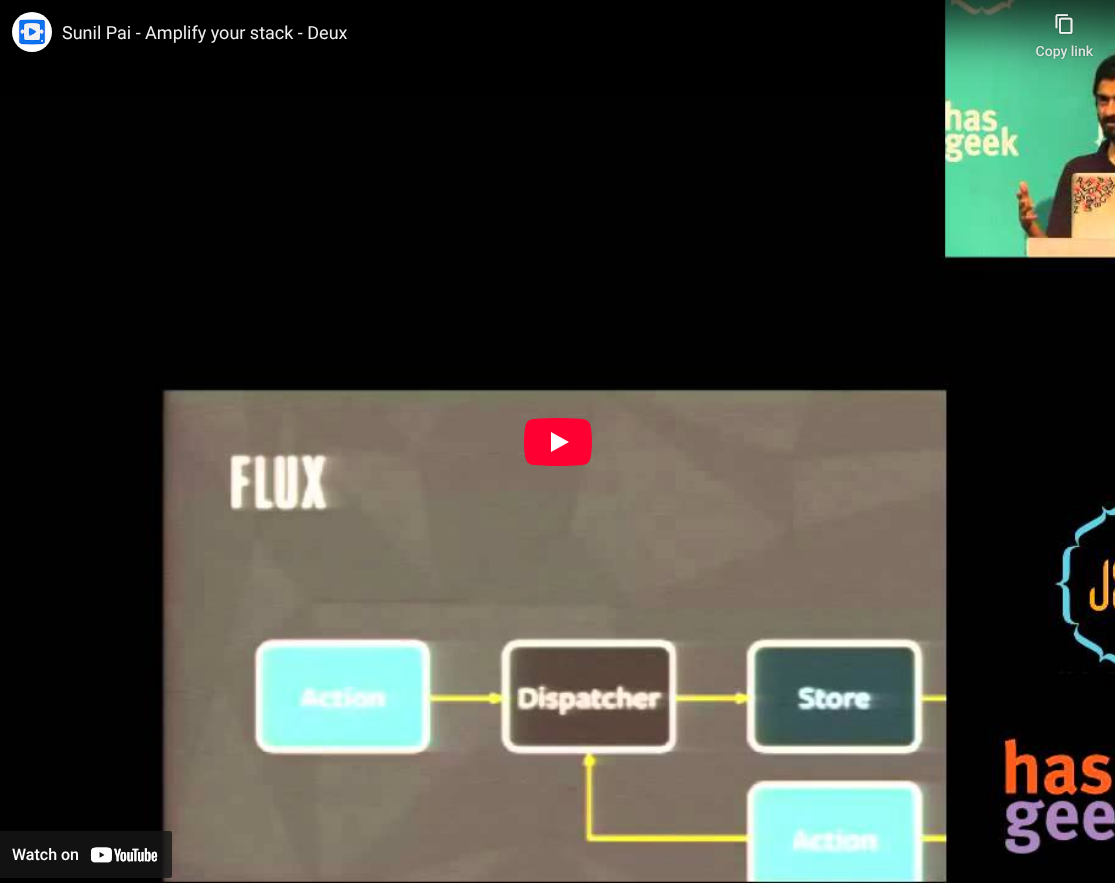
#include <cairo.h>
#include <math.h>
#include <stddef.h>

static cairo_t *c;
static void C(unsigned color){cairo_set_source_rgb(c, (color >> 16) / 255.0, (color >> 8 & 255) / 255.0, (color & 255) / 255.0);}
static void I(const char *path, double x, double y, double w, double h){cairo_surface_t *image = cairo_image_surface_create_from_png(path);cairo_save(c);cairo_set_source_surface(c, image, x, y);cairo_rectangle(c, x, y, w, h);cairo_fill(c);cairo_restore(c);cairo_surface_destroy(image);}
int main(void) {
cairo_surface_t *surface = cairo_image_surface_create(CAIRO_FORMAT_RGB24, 1115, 883);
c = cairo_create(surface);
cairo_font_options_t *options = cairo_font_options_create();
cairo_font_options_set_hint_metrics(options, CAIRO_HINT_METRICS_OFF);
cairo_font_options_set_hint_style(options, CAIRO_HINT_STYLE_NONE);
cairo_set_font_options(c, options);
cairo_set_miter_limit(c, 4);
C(0xffffff);
cairo_paint(c);
I("1.png",0,0,1115,883);
cairo_surface_write_to_png(surface, "o.png");
cairo_font_options_destroy(options);
cairo_destroy(c);
cairo_surface_destroy(surface);
return 0;
}
